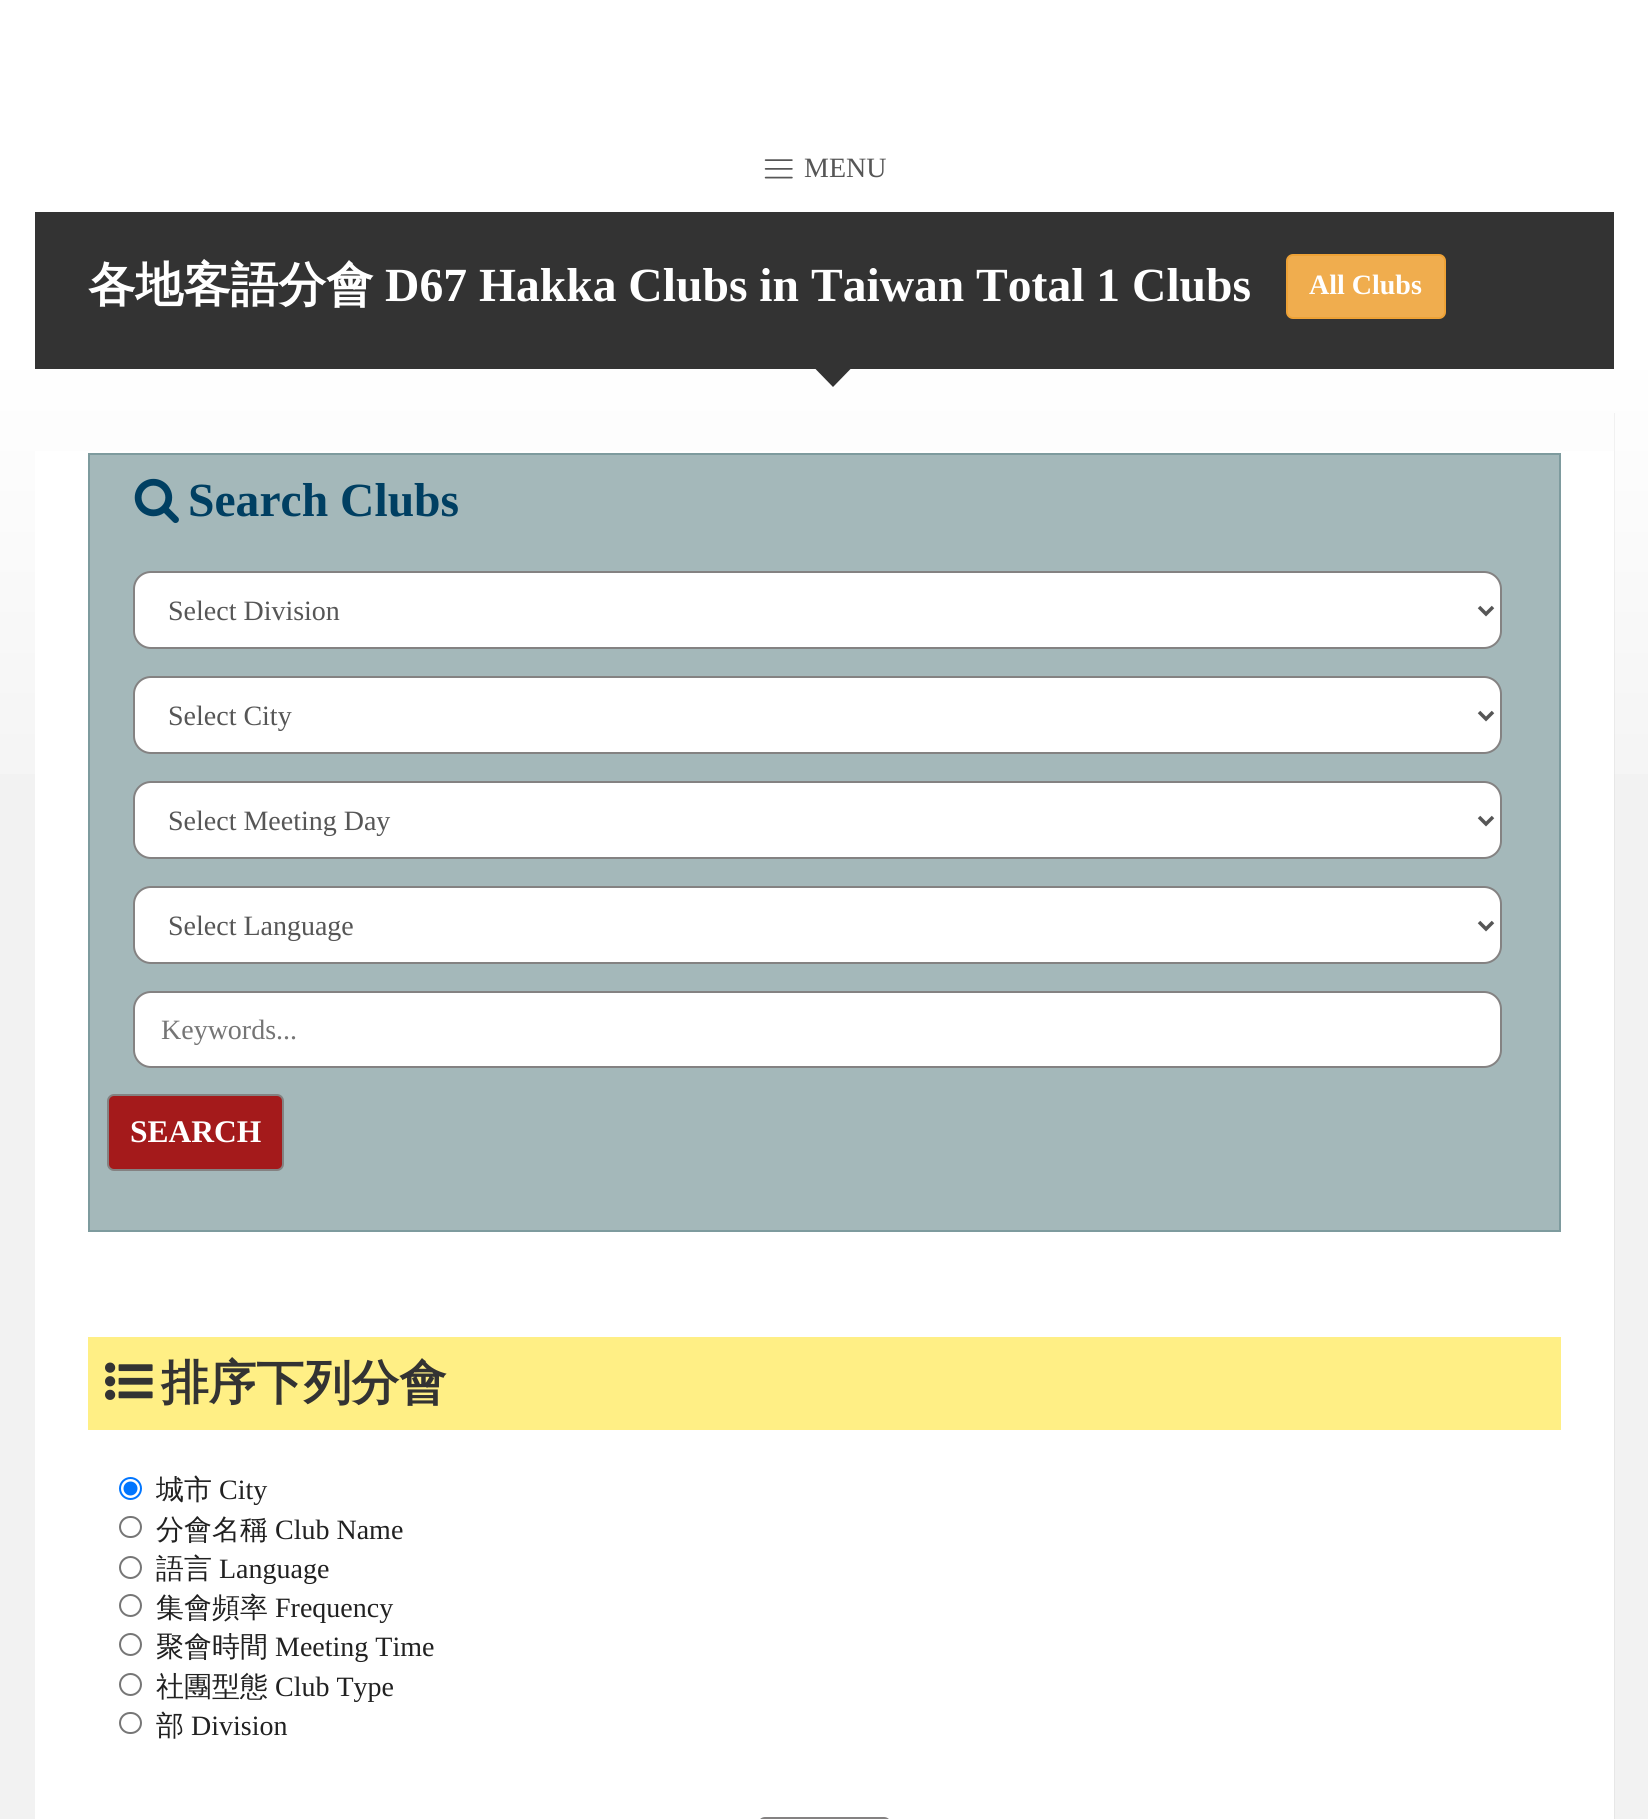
#include <cairo.h>
#include <math.h>
#include <stddef.h>

static cairo_t *c;
static void C(unsigned color){cairo_set_source_rgb(c, (color >> 16) / 255.0, (color >> 8 & 255) / 255.0, (color & 255) / 255.0);}
static void F(const char *family, double size, int italic, int bold){cairo_select_font_face(c, family, italic ? CAIRO_FONT_SLANT_ITALIC : CAIRO_FONT_SLANT_NORMAL,bold ? CAIRO_FONT_WEIGHT_BOLD : CAIRO_FONT_WEIGHT_NORMAL);cairo_set_font_size(c, size);}
static void T(double x, double y, const char *s){cairo_move_to(c, x, y);cairo_show_text(c, s);}
static void R(double x, double y, double w, double h){cairo_rectangle(c, x, y, w, h);cairo_fill(c);}
static void Q(double x, double y, double w, double h, double r){cairo_new_sub_path(c);cairo_arc(c, x + w - r, y + h - r, r, 0, M_PI / 2);cairo_arc(c, x + r, y + h - r, r, M_PI / 2, M_PI);cairo_arc(c, x + r, y + r, r, M_PI, 1.5 * M_PI);cairo_arc(c, x + w - r, y + r, r, 1.5 * M_PI, 2 * M_PI);cairo_close_path(c);}
static void I(const char *path, double x, double y, double w, double h){cairo_surface_t *image = cairo_image_surface_create_from_png(path);cairo_save(c);cairo_set_source_surface(c, image, x, y);cairo_rectangle(c, x, y, w, h);cairo_fill(c);cairo_restore(c);cairo_surface_destroy(image);}
int main(void) {
cairo_surface_t *surface = cairo_image_surface_create(CAIRO_FORMAT_RGB24, 1648, 1819);
c = cairo_create(surface);
cairo_font_options_t *options = cairo_font_options_create();
cairo_font_options_set_hint_metrics(options, CAIRO_HINT_METRICS_OFF);
cairo_font_options_set_hint_style(options, CAIRO_HINT_STYLE_NONE);
cairo_set_font_options(c, options);
cairo_set_miter_limit(c, 4);
cairo_pattern_t *gradient;
C(0xf2f2f2);
cairo_paint(c);
C(0xffffff);
R(0,0,1648,350);
gradient = cairo_pattern_create_linear(824,350,824,875);
cairo_pattern_add_color_stop_rgba(gradient,0,1,1,1,1);
cairo_pattern_add_color_stop_rgba(gradient,1,0.949,0.949,0.949,1);
cairo_set_source(c,gradient);
cairo_pattern_destroy(gradient);
R(0,350,1648,424);
I("1.png",764,159,29,20);
F("Liberation Serif",28,0,0);
C(0x565656);
T(804,177,"MENU");
C(0x333333);
R(35,212,1579,157);
F("WenQuanYi Zen Hei",47.6,0,1);
C(0xffffff);
T(88,301,"各地客語分會");
F("Liberation Serif",47.6,0,1);
T(385,301,"D67 Hakka Clubs in Taiwan");
T(976,301,"Total 1 Clubs");
C(0xf0ad4e);
Q(1287,255,158,63,6);
cairo_fill_preserve(c);
C(0xeea236);
cairo_stroke(c);
F("Liberation Serif",28,0,1);
C(0xffffff);
T(1309,294,"All Clubs");
C(0x333333);
cairo_new_path(c);
cairo_move_to(c,815.5,369);
cairo_line_to(c,850.5,369);
cairo_line_to(c,833,387);
cairo_close_path(c);
cairo_fill(c);
cairo_set_source_rgba(c,0,0,0,0.05);
cairo_new_path(c);
cairo_move_to(c,37,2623);
cairo_line_to(c,37,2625);
cairo_line_to(c,1615,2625);
cairo_line_to(c,1615,413);
cairo_line_to(c,1614,413);
cairo_line_to(c,1614,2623);
cairo_close_path(c);
cairo_fill(c);
C(0xffffff);
R(35,451,1579,1368);
C(0xa4b8ba);
cairo_rectangle(c,89,454,1471,777);
cairo_fill_preserve(c);
C(0x7e9b9e);
cairo_stroke(c);
I("2.png",134,478,45,45);
F("Liberation Serif",47.6,0,1);
C(0x003f62);
T(188,516,"Search Clubs");
C(0xffffff);
Q(134,572,1367,76,17);
cairo_fill_preserve(c);
C(0x848282);
cairo_stroke(c);
cairo_new_path(c);
cairo_move_to(c,1479,607);
cairo_line_to(c,1486,614);
cairo_line_to(c,1493,607);
C(0x565656);
cairo_set_line_width(c,3.5);
cairo_stroke(c);
F("Liberation Serif",28,0,0);
T(168,620,"Select Division");
C(0xffffff);
Q(134,677,1367,76,17);
cairo_fill_preserve(c);
C(0x848282);
cairo_set_line_width(c,2);
cairo_stroke(c);
cairo_new_path(c);
cairo_move_to(c,1479,712);
cairo_line_to(c,1486,719);
cairo_line_to(c,1493,712);
C(0x565656);
cairo_set_line_width(c,3.5);
cairo_stroke(c);
T(168,725,"Select City");
C(0xffffff);
Q(134,782,1367,76,17);
cairo_fill_preserve(c);
C(0x848282);
cairo_set_line_width(c,2);
cairo_stroke(c);
cairo_new_path(c);
cairo_move_to(c,1479,817);
cairo_line_to(c,1486,824);
cairo_line_to(c,1493,817);
C(0x565656);
cairo_set_line_width(c,3.5);
cairo_stroke(c);
T(168,830,"Select Meeting Day");
C(0xffffff);
Q(134,887,1367,76,17);
cairo_fill_preserve(c);
C(0x848282);
cairo_set_line_width(c,2);
cairo_stroke(c);
cairo_new_path(c);
cairo_move_to(c,1479,922);
cairo_line_to(c,1486,929);
cairo_line_to(c,1493,922);
C(0x565656);
cairo_set_line_width(c,3.5);
cairo_stroke(c);
T(168,935,"Select Language");
C(0xffffff);
Q(134,992,1367,75,17);
cairo_fill_preserve(c);
C(0x848282);
cairo_set_line_width(c,2);
cairo_stroke(c);
C(0x757575);
T(161,1039,"Keywords...");
C(0xa41a1b);
Q(108,1095,175,75,6);
cairo_fill_preserve(c);
C(0x848282);
cairo_stroke(c);
F("Liberation Serif",31.5,0,1);
C(0xffffff);
T(130,1142,"SEARCH");
C(0xffef85);
R(88,1337,1473,93);
I("3.png",105,1362,48,38);
F("WenQuanYi Zen Hei",47.6,0,1);
C(0x333333);
T(161,1399,"排序下列分會");
cairo_new_path(c);
cairo_arc(c,130.5,1488.5,10.5,0,2 * M_PI);
C(0x0075ff);
cairo_stroke(c);
cairo_arc(c,130.5,1488.5,7,0,2 * M_PI);
cairo_fill(c);
F("WenQuanYi Zen Hei Medium",28,0,0);
C(0x212121);
T(156,1499,"城市");
F("Liberation Serif",28,0,0);
T(219,1499,"City");
Q(120,1517,21,20,10);
C(0x767676);
cairo_stroke(c);
F("WenQuanYi Zen Hei Medium",28,0,0);
C(0x212121);
T(156,1539,"分會名稱");
F("Liberation Serif",28,0,0);
T(275,1539,"Club Name");
cairo_new_path(c);
cairo_arc(c,130.5,1567.5,10.5,0,2 * M_PI);
C(0x767676);
cairo_stroke(c);
F("WenQuanYi Zen Hei Medium",28,0,0);
C(0x212121);
T(156,1578,"語言");
F("Liberation Serif",28,0,0);
T(219,1578,"Language");
cairo_new_path(c);
cairo_arc(c,130.5,1605.5,10.5,0,2 * M_PI);
C(0x767676);
cairo_stroke(c);
F("WenQuanYi Zen Hei Medium",28,0,0);
C(0x212121);
T(156,1617,"集會頻率");
F("Liberation Serif",28,0,0);
T(275,1617,"Frequency");
cairo_new_path(c);
cairo_arc(c,130.5,1644.5,10.5,0,2 * M_PI);
C(0x767676);
cairo_stroke(c);
F("WenQuanYi Zen Hei Medium",28,0,0);
C(0x212121);
T(156,1656,"聚會時間");
F("Liberation Serif",28,0,0);
T(275,1656,"Meeting Time");
cairo_new_path(c);
cairo_arc(c,130.5,1684.5,10.5,0,2 * M_PI);
C(0x767676);
cairo_stroke(c);
F("WenQuanYi Zen Hei Medium",28,0,0);
C(0x212121);
T(156,1696,"社團型態");
F("Liberation Serif",28,0,0);
T(275,1696,"Club Type");
Q(120,1713,21,20,10);
C(0x767676);
cairo_stroke(c);
F("WenQuanYi Zen Hei Medium",28,0,0);
C(0x212121);
T(156,1735,"部");
F("Liberation Serif",28,0,0);
T(191,1735,"Division");
Q(759,1818,131,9,6);
C(0x848282);
cairo_stroke(c);
cairo_surface_write_to_png(surface, "o.png");
cairo_font_options_destroy(options);
cairo_destroy(c);
cairo_surface_destroy(surface);
return 0;
}
